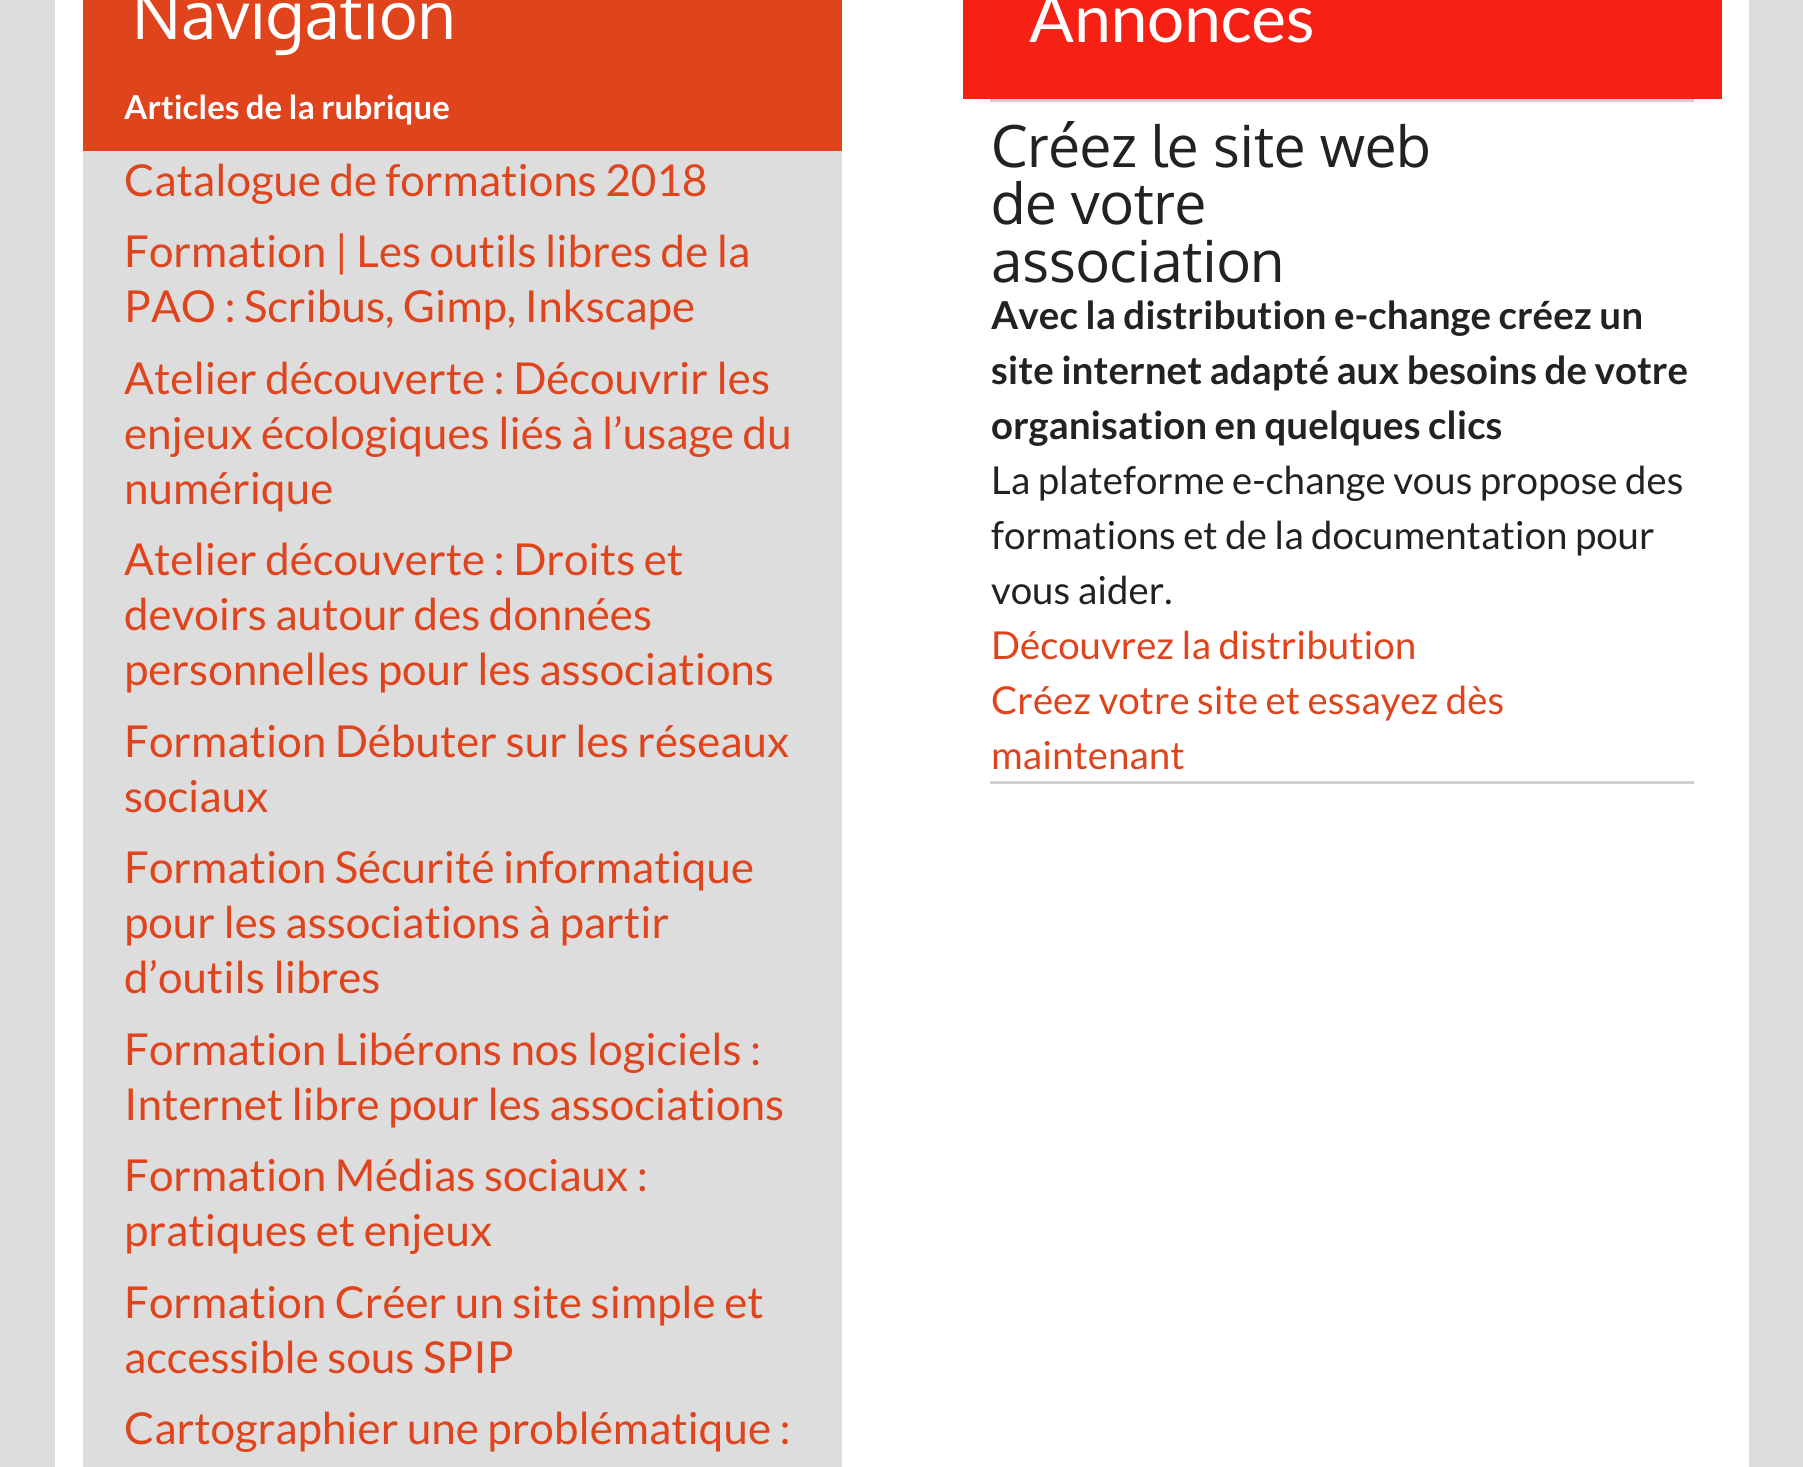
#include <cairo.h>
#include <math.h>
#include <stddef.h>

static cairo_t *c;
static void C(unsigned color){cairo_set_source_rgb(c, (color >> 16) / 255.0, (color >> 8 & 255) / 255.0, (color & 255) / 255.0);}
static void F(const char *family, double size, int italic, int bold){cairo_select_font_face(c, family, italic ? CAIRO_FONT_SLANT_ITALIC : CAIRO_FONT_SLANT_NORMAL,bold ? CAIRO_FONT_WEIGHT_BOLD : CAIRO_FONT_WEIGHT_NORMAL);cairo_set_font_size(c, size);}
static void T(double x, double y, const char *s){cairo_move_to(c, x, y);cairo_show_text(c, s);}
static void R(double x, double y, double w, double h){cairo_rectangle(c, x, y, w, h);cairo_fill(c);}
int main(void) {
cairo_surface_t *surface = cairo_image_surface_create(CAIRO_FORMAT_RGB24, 1803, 1467);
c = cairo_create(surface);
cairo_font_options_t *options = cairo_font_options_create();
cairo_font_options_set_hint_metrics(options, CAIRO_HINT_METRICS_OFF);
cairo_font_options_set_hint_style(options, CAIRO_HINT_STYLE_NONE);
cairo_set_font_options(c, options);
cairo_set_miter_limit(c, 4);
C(0xdddddd);
cairo_paint(c);
C(0xffffff);
R(55,0,1694,1467);
C(0xdddddd);
R(83,151,759,1316);
C(0xe0441d);
R(83,0,759,151);
F("Oxygen",66,0,0);
C(0xffffff);
T(132,39,"Navigation");
F("Lato",33,0,1);
T(124,119,"Articles de la rubrique");
F("Lato",44,0,0);
C(0xe0441d);
T(124,196,"Catalogue de formations 2018");
T(124,267,"Formation | Les outils libres de la");
T(124,322,"PAO : Scribus, Gimp, Inkscape");
T(124,394,"Atelier découverte : Découvrir les");
T(124,449,"enjeux écologiques liés à l’usage du");
T(124,504,"numérique");
T(124,575,"Atelier découverte : Droits et");
T(124,630,"devoirs autour des données");
T(124,685,"personnelles pour les associations");
T(124,757,"Formation Débuter sur les réseaux");
T(124,812,"sociaux");
T(124,883,"Formation Sécurité informatique");
T(124,938,"pour les associations à partir");
T(124,993,"d’outils libres");
T(124,1065,"Formation Libérons nos logiciels :");
T(124,1120,"Internet libre pour les associations");
T(124,1191,"Formation Médias sociaux :");
T(124,1246,"pratiques et enjeux");
T(124,1318,"Formation Créer un site simple et");
T(124,1373,"accessible sous SPIP");
T(124,1444,"Cartographier une problématique :");
C(0xf72014);
R(963,0,759,99);
F("Lato",66,0,0);
C(0xffffff);
T(1029,42,"Annonces");
C(0xcfd2d2);
R(990,99,704,3);
R(990,781,704,3);
F("Oxygen",57.75,0,0);
C(0x222222);
T(991,167,"Créez le site web");
T(991,224,"de votre");
T(991,282,"association");
F("Lato",38.5,0,1);
T(991,329,"Avec la distribution e-change créez un");
T(991,384,"site internet adapté aux besoins de votre");
T(991,439,"organisation en quelques clics");
F("Lato",38.5,0,0);
T(991,494,"La plateforme e-change vous propose des");
T(991,549,"formations et de la documentation pour");
T(991,604,"vous aider.");
C(0xe0441d);
T(991,659,"Découvrez la distribution");
T(991,714,"Créez votre site et essayez dès");
T(991,769,"maintenant");
cairo_surface_write_to_png(surface, "o.png");
cairo_font_options_destroy(options);
cairo_destroy(c);
cairo_surface_destroy(surface);
return 0;
}
